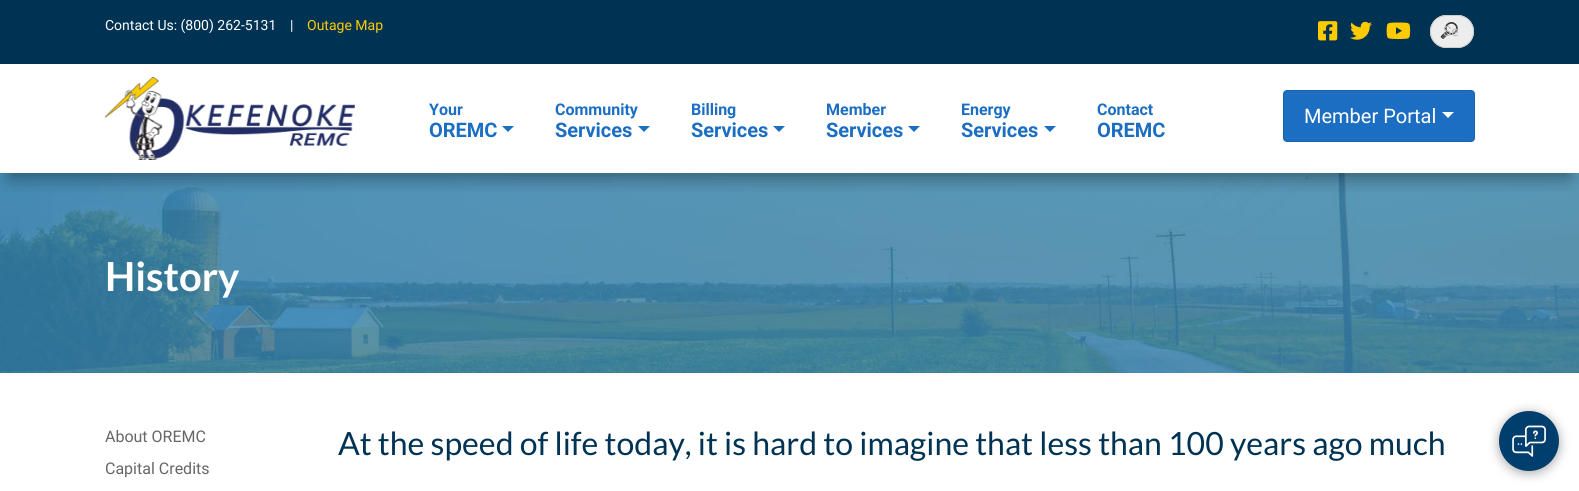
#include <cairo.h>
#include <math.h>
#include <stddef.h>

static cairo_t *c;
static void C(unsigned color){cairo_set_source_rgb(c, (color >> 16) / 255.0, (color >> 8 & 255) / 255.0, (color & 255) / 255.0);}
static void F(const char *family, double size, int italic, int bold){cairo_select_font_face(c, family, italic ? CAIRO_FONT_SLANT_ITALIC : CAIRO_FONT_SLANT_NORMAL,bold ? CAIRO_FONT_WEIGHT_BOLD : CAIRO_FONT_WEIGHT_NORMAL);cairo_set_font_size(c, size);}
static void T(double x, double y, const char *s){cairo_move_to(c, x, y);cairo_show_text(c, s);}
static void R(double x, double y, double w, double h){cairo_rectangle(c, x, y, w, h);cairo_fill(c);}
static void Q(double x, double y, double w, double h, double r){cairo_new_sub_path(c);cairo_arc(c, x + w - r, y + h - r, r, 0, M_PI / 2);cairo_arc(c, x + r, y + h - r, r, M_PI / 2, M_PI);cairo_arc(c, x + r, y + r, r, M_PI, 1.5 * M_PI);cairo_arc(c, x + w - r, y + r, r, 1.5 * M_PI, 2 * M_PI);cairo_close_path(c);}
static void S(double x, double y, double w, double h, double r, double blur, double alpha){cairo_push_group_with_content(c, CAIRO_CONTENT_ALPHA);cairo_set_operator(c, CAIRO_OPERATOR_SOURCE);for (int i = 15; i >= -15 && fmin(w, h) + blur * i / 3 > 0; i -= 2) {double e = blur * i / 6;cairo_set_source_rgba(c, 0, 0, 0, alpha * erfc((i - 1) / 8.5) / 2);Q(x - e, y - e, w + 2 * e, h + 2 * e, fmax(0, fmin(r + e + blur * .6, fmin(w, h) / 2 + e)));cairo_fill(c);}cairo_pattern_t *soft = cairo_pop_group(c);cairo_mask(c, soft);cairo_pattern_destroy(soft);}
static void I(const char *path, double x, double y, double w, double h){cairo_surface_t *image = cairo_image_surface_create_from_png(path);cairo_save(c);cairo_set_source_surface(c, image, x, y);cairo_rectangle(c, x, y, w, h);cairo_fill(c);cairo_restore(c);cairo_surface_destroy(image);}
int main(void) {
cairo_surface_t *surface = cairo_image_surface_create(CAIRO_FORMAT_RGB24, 1579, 491);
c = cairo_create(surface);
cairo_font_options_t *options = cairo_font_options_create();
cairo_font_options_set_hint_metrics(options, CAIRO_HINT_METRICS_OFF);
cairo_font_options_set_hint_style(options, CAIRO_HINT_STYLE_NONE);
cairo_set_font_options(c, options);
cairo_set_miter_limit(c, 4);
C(0xffffff);
cairo_paint(c);
C(0x003353);
R(0,0,1579,64);
F("Roboto",14,0,0);
C(0xffffff);
T(105,30,"Contact Us: (800) 262-5131");
T(290,30,"|");
C(0xfecb00);
T(307,30,"Outage Map");
I("1.png",1318,21,20,20);
I("2.png",1350,21,22,19);
I("3.png",1386,22,25,17);
C(0xededed);
Q(1430,15,44,33,16.5);
cairo_fill(c);
I("4.png",1440,22,18,18);
Q(1430.5,15.5,43,32,16);
C(0xcccccc);
cairo_set_line_width(c,1);
cairo_stroke(c);
C(0xbbbbbb);
T(1443,36,"Se");
I("6.png",0,173,1579,200);
cairo_save(c);
cairo_rectangle(c,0,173,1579,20);
cairo_clip(c);
C(0x000000);
S(10,89,1559,89,0,9,.38);
cairo_restore(c);
I("5.png",104,77,251,83);
F("Roboto",16,0,1);
C(0x1b6ec2);
T(429,115,"Your");
F("Roboto",20,0,1);
T(429,137,"OREMC");
cairo_new_path(c);
cairo_move_to(c,502,126);
cairo_line_to(c,514,126);
cairo_line_to(c,508,132);
cairo_close_path(c);
cairo_fill(c);
F("Roboto",16,0,1);
T(555,115,"Community");
F("Roboto",20,0,1);
T(555,137,"Services");
cairo_new_path(c);
cairo_move_to(c,638,126);
cairo_line_to(c,650,126);
cairo_line_to(c,644,132);
cairo_close_path(c);
cairo_fill(c);
F("Roboto",16,0,1);
T(691,115,"Billing");
F("Roboto",20,0,1);
T(691,137,"Services");
cairo_new_path(c);
cairo_move_to(c,773,126);
cairo_line_to(c,785,126);
cairo_line_to(c,779,132);
cairo_close_path(c);
cairo_fill(c);
F("Roboto",16,0,1);
T(826,115,"Member");
F("Roboto",20,0,1);
T(826,137,"Services");
cairo_new_path(c);
cairo_move_to(c,908,126);
cairo_line_to(c,920,126);
cairo_line_to(c,914,132);
cairo_close_path(c);
cairo_fill(c);
F("Roboto",16,0,1);
T(961,115,"Energy");
F("Roboto",20,0,1);
T(961,137,"Services");
cairo_new_path(c);
cairo_move_to(c,1044,126);
cairo_line_to(c,1056,126);
cairo_line_to(c,1050,132);
cairo_close_path(c);
cairo_fill(c);
F("Roboto",16,0,1);
T(1097,115,"Contact");
F("Roboto",20,0,1);
T(1097,137,"OREMC");
Q(1283.5,90.5,191,51,3.5);
cairo_fill_preserve(c);
C(0x1861ac);
cairo_stroke(c);
F("Roboto",20,0,0);
C(0xffffff);
T(1304,123,"Member Portal");
cairo_new_path(c);
cairo_move_to(c,1442,112);
cairo_line_to(c,1454,112);
cairo_line_to(c,1448,118);
cairo_close_path(c);
cairo_fill(c);
F("Lato",40,0,1);
T(105,291,"History");
F("Roboto",16,0,0);
C(0x666666);
T(105,442,"About OREMC");
T(105,474,"Capital Credits");
F("Lato",32,0,0);
C(0x003353);
T(338,455,"At the speed of life today, it is hard to imagine that less than 100 years ago much");
C(0xb5b5b5);
S(1498,412,62,62,31,5,1);
C(0x003e6e);
cairo_arc(c,1529,441,30,0,2 * M_PI);
cairo_fill(c);
I("7.png",1512,425,34,32);
cairo_surface_write_to_png(surface, "o.png");
cairo_font_options_destroy(options);
cairo_destroy(c);
cairo_surface_destroy(surface);
return 0;
}
